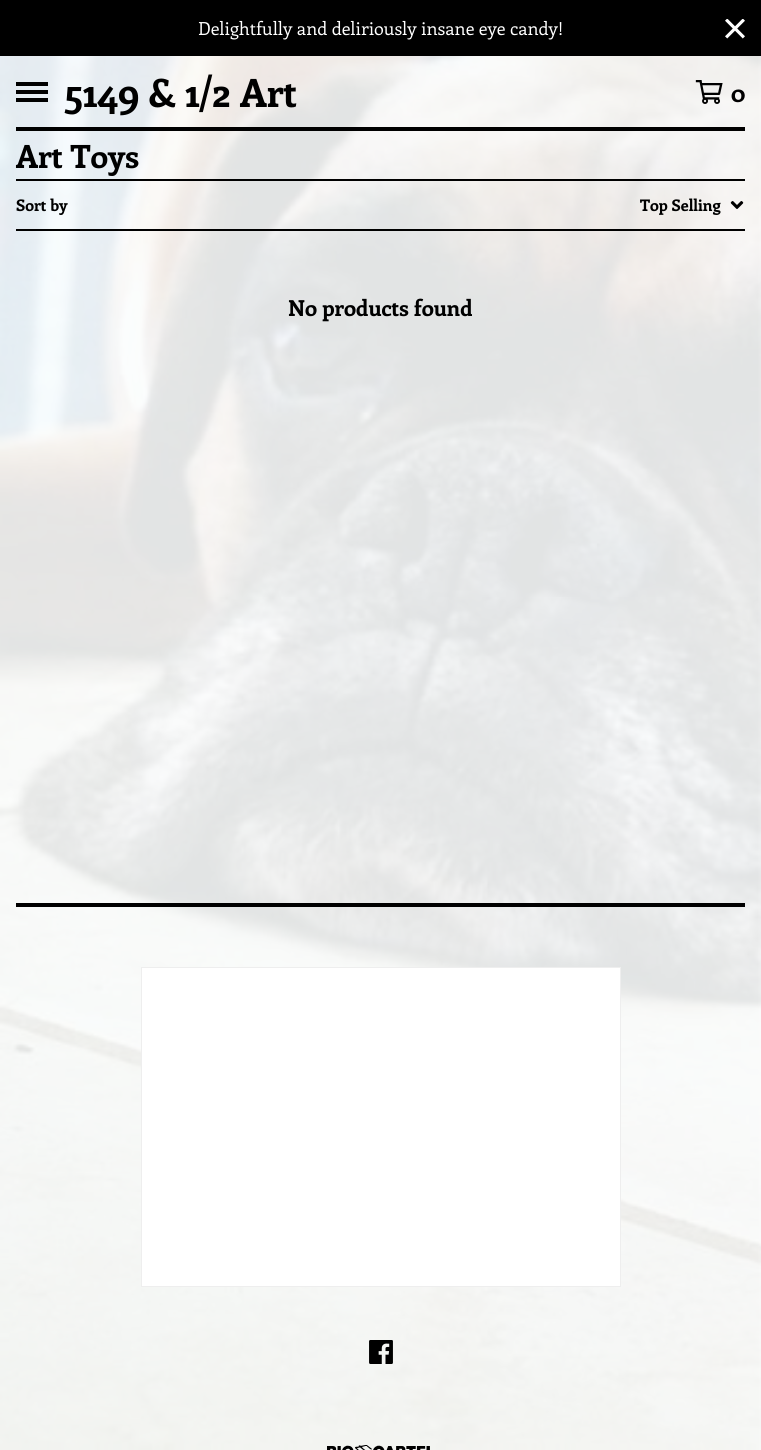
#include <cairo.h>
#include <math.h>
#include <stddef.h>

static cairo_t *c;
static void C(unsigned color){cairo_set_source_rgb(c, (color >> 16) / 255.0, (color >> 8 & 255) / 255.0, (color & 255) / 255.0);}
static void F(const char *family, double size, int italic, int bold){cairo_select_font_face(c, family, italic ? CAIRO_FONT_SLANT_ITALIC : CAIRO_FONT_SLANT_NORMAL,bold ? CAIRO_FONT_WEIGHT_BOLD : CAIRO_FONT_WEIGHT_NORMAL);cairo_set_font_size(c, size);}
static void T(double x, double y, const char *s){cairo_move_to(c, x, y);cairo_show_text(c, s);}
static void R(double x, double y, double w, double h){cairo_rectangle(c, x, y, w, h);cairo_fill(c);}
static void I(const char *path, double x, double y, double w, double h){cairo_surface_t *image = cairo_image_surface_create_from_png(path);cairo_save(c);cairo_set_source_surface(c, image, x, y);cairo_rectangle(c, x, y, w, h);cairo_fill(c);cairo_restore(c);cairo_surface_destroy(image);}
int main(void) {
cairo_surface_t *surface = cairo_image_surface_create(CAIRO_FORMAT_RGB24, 761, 1450);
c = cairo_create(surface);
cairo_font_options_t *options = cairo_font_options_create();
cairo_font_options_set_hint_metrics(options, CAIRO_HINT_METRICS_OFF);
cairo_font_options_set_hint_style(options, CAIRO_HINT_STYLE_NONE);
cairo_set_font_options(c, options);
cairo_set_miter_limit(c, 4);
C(0xffffff);
cairo_paint(c);
I("1.png",0,56,761,1394);
C(0x000000);
R(0,0,761,56);
F("Enriqueta",18,0,0);
C(0xffffff);
T(198,35,"Delightfully and deliriously insane eye candy!");
I("2.png",725,19,20,20);
C(0x000000);
R(16,127,729,4);
R(16,90,32,4);
R(16,82,32,4);
R(16,98,32,4);
F("Enriqueta",39,0,1);
T(64,107,"5149 & 1/2 Art");
I("3.png",695,80,28,24);
F("Enriqueta",24,0,1);
T(731,102,"0");
R(16,229,729,2);
R(16,179,729,2);
F("Enriqueta",32,0,1);
T(16,168,"Art Toys");
F("Enriqueta",16,0,1);
T(16,211,"Sort by");
T(640,211,"Top Selling");
I("4.png",730,201,14,8);
F("Enriqueta",22,0,1);
T(288,316,"No products found");
R(16,903,729,4);
C(0xffffff);
cairo_rectangle(c,141.5,967.5,479,319);
cairo_fill_preserve(c);
C(0xeeeeee);
cairo_set_line_width(c,1);
cairo_stroke(c);
I("5.png",369,1340,24,24);
I("6.png",327,1445,103,5);
cairo_surface_write_to_png(surface, "o.png");
cairo_font_options_destroy(options);
cairo_destroy(c);
cairo_surface_destroy(surface);
return 0;
}
